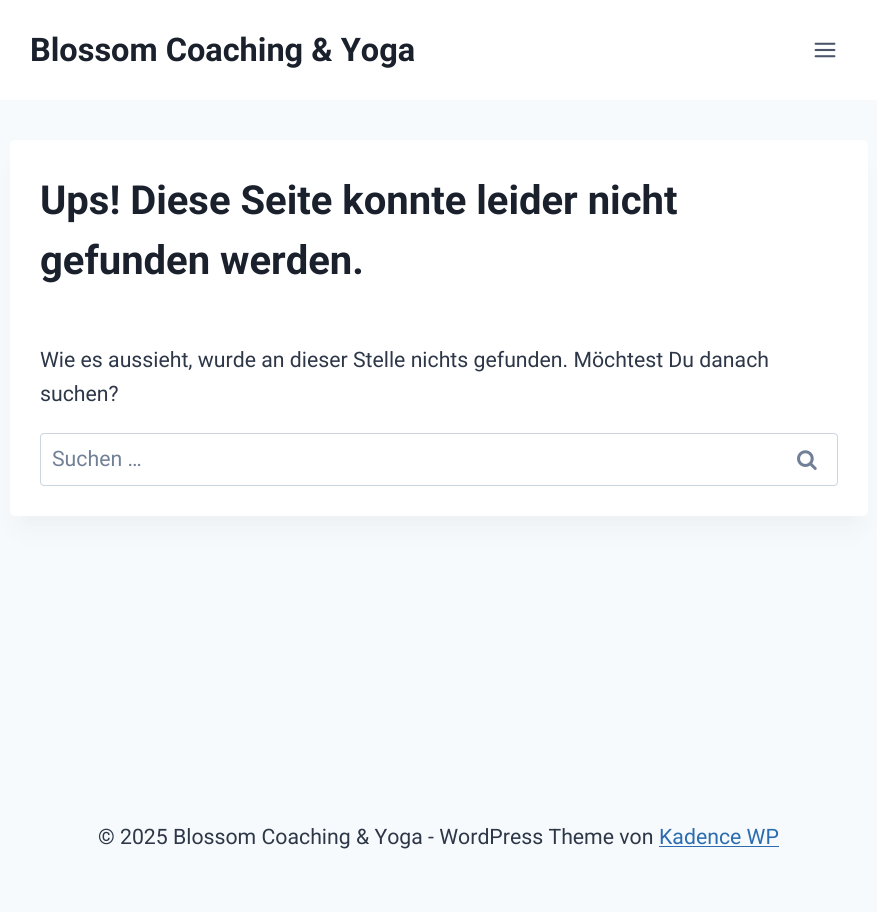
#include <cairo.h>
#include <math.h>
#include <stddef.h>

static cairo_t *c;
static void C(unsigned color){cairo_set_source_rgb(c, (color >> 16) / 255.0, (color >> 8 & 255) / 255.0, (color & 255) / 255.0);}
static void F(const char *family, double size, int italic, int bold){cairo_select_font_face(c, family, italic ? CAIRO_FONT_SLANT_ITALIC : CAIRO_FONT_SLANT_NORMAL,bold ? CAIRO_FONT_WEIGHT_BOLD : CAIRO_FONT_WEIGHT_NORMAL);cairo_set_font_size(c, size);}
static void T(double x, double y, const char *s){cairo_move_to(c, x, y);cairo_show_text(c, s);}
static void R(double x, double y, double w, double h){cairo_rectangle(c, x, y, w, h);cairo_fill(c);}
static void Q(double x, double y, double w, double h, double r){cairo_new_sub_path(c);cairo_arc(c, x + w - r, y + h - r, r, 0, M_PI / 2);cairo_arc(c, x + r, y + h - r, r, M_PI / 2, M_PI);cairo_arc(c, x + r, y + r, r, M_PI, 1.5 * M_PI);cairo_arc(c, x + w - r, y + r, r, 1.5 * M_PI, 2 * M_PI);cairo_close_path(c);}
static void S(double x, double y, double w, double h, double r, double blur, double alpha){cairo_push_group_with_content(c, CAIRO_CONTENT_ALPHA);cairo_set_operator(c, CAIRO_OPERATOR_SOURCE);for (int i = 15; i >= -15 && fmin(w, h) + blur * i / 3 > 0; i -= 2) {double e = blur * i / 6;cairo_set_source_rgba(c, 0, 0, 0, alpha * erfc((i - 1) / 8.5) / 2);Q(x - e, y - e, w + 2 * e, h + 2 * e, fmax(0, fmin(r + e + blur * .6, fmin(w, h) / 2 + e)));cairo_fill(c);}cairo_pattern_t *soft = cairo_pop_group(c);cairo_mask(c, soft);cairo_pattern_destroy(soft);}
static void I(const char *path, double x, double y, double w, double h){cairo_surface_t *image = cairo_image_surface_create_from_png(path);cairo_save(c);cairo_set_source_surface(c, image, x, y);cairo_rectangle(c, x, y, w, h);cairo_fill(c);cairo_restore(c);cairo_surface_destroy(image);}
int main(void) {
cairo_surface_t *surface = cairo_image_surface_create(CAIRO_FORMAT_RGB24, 877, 912);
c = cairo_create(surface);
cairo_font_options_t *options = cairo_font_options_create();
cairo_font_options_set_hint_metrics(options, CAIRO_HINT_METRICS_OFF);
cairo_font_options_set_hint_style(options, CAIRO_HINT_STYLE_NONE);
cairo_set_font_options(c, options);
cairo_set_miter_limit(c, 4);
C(0xf7fafc);
cairo_paint(c);
C(0xffffff);
R(0,0,877,100);
F("Roboto",32.5,0,1);
C(0x1a202c);
T(30,61,"Blossom Coaching & Yoga");
I("1.png",814,42,22,16);
C(0x000000);
S(23,171,832,352,0,15.5,.05);
C(0xffffff);
Q(10,140,858,376,5);
cairo_fill(c);
F("Roboto",40,0,1);
C(0x1a202c);
T(40,214,"Ups! Diese Seite konnte leider nicht");
T(40,274,"gefunden werden.");
F("Roboto",21.25,0,0);
C(0x2d3748);
T(40,367,"Wie es aussieht, wurde an dieser Stelle nichts gefunden. Möchtest Du danach");
T(40,401,"suchen?");
Q(40.5,433.5,797,52,3.5);
C(0xcbd5e0);
cairo_set_line_width(c,1);
cairo_stroke(c);
C(0x718096);
T(52,466,"Suchen …");
I("2.png",797,450,20,20);
C(0x2d3748);
T(98,844,"© 2025 Blossom Coaching & Yoga - WordPress Theme von");
C(0x2b6cb0);
T(659,844,"Kadence WP");
R(659,846,120,1);
cairo_surface_write_to_png(surface, "o.png");
cairo_font_options_destroy(options);
cairo_destroy(c);
cairo_surface_destroy(surface);
return 0;
}
